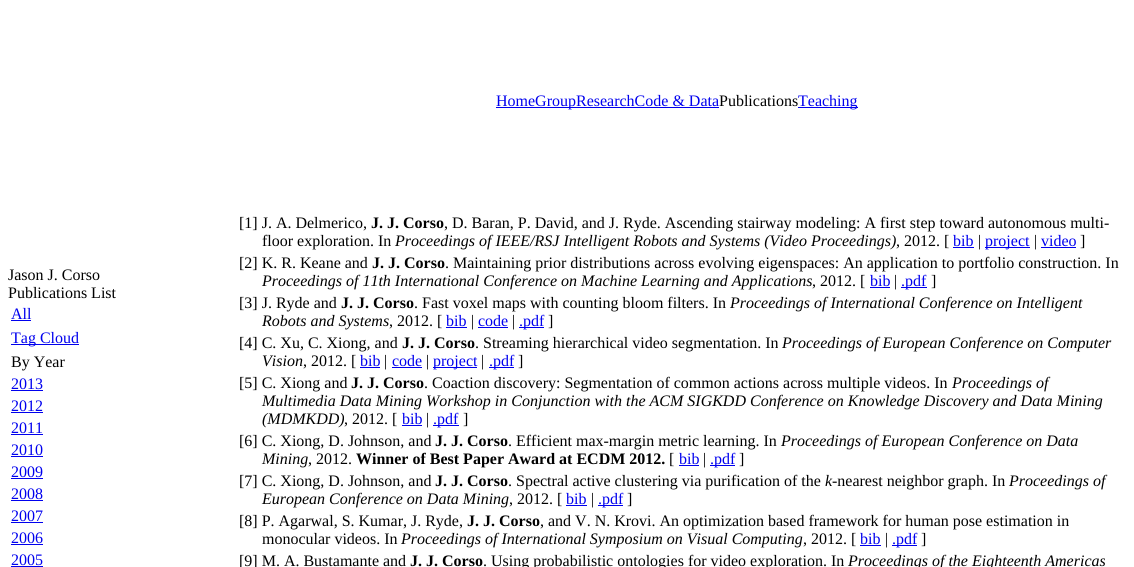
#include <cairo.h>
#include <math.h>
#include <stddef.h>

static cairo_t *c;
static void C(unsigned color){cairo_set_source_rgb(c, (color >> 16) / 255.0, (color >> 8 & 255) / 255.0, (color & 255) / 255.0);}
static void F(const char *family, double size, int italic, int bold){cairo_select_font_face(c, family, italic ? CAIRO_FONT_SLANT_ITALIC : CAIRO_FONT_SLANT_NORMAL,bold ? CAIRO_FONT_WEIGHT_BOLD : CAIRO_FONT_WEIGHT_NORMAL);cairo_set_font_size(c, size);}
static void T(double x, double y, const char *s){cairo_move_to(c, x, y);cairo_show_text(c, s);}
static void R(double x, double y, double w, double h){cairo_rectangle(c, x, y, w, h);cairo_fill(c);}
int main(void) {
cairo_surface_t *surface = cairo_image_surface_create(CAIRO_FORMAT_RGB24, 1134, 567);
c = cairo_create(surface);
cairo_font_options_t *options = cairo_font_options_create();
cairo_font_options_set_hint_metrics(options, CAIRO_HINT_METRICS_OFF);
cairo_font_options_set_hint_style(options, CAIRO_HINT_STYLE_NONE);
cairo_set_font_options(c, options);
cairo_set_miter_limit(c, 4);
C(0xffffff);
cairo_paint(c);
C(0x0000ee);
R(496,107,223,1);
F("Liberation Serif",16,0,0);
T(496,106,"HomeGroupResearchCode & Data");
C(0x000000);
T(719,106,"Publications");
C(0x0000ee);
R(798,107,60,1);
T(798,106,"Teaching");
C(0x000000);
T(8,280,"Jason J. Corso");
T(8,298,"Publications List");
C(0x0000ee);
T(11,319,"All");
R(11,320,20,1);
R(11,344,68,1);
T(11,343,"Tag Cloud");
C(0x000000);
T(11,367,"By Year");
C(0x0000ee);
T(11,389,"2013");
R(11,390,32,1);
T(11,411,"2012");
R(11,412,32,1);
T(11,433,"2011");
R(11,434,32,1);
T(11,455,"2010");
R(11,456,32,1);
T(11,477,"2009");
R(11,478,32,1);
T(11,499,"2008");
R(11,500,32,1);
T(11,521,"2007");
R(11,522,32,1);
T(11,543,"2006");
R(11,544,32,1);
T(11,565,"2005");
R(11,566,32,1);
C(0x000000);
T(239,228,"[1] J. A. Delmerico,");
F("Liberation Serif",16,0,1);
T(371,228,"J. J. Corso");
F("Liberation Serif",16,0,0);
T(444,228,", D. Baran, P. David, and J. Ryde. Ascending stairway modeling: A first step toward autonomous multi-");
T(262,246,"floor exploration. In");
F("Liberation Serif",16,1,0);
T(395,246,"Proceedings of IEEE/RSJ Intelligent Robots and Systems (Video Proceedings)");
F("Liberation Serif",16,0,0);
T(896,246,", 2012. [");
C(0x0000ee);
T(953,246,"bib");
R(953,247,21,1);
C(0x000000);
T(978,246,"|");
C(0x0000ee);
R(985,247,45,1);
T(985,246,"project");
C(0x000000);
T(1034,246,"|");
C(0x0000ee);
T(1041,246,"video");
R(1041,247,35,1);
C(0x000000);
T(1080,246,"]");
T(239,268,"[2] K. R. Keane and");
F("Liberation Serif",16,0,1);
T(372,268,"J. J. Corso");
F("Liberation Serif",16,0,0);
T(445,268,". Maintaining prior distributions across evolving eigenspaces: An application to portfolio construction. In");
F("Liberation Serif",16,1,0);
T(262,286,"Proceedings of 11th International Conference on Machine Learning and Applications");
F("Liberation Serif",16,0,0);
T(812,286,", 2012. [");
C(0x0000ee);
T(870,286,"bib");
R(870,287,20,1);
C(0x000000);
T(894,286,"|");
C(0x0000ee);
R(901,287,26,1);
T(901,286,".pdf");
C(0x000000);
T(931,286,"]");
T(239,308,"[3] J. Ryde and");
F("Liberation Serif",16,0,1);
T(341,308,"J. J. Corso");
F("Liberation Serif",16,0,0);
T(414,308,". Fast voxel maps with counting bloom filters. In");
F("Liberation Serif",16,1,0);
T(730,308,"Proceedings of International Conference on Intelligent");
T(262,326,"Robots and Systems");
F("Liberation Serif",16,0,0);
T(389,326,", 2012. [");
C(0x0000ee);
T(446,326,"bib");
R(446,327,21,1);
C(0x000000);
T(471,326,"|");
C(0x0000ee);
T(478,326,"code");
R(478,327,30,1);
C(0x000000);
T(512,326,"|");
C(0x0000ee);
R(519,327,25,1);
T(519,326,".pdf");
C(0x000000);
T(548,326,"]");
T(239,348,"[4] C. Xu, C. Xiong, and");
F("Liberation Serif",16,0,1);
T(402,348,"J. J. Corso");
F("Liberation Serif",16,0,0);
T(475,348,". Streaming hierarchical video segmentation. In");
F("Liberation Serif",16,1,0);
T(782,348,"Proceedings of European Conference on Computer");
T(262,366,"Vision");
F("Liberation Serif",16,0,0);
T(303,366,", 2012. [");
C(0x0000ee);
T(360,366,"bib");
R(360,367,20,1);
C(0x000000);
T(384,366,"|");
C(0x0000ee);
T(392,366,"code");
R(392,367,30,1);
C(0x000000);
T(426,366,"|");
C(0x0000ee);
R(433,367,44,1);
T(433,366,"project");
C(0x000000);
T(481,366,"|");
C(0x0000ee);
R(489,367,25,1);
T(489,366,".pdf");
C(0x000000);
T(518,366,"]");
T(239,388,"[5] C. Xiong and");
F("Liberation Serif",16,0,1);
T(351,388,"J. J. Corso");
F("Liberation Serif",16,0,0);
T(424,388,". Coaction discovery: Segmentation of common actions across multiple videos. In");
F("Liberation Serif",16,1,0);
T(952,388,"Proceedings of");
T(262,406,"Multimedia Data Mining Workshop in Conjunction with the ACM SIGKDD Conference on Knowledge Discovery and Data Mining");
T(262,424,"(MDMKDD)");
F("Liberation Serif",16,0,0);
T(344,424,", 2012. [");
C(0x0000ee);
T(402,424,"bib");
R(402,425,20,1);
C(0x000000);
T(426,424,"|");
C(0x0000ee);
R(433,425,26,1);
T(433,424,".pdf");
C(0x000000);
T(463,424,"]");
T(239,446,"[6] C. Xiong, D. Johnson, and");
F("Liberation Serif",16,0,1);
T(435,446,"J. J. Corso");
F("Liberation Serif",16,0,0);
T(508,446,". Efficient max-margin metric learning. In");
F("Liberation Serif",16,1,0);
T(781,446,"Proceedings of European Conference on Data");
T(262,464,"Mining");
F("Liberation Serif",16,0,0);
T(308,464,", 2012.");
F("Liberation Serif",16,0,1);
T(356,464,"Winner of Best Paper Award at ECDM 2012.");
F("Liberation Serif",16,0,0);
T(669,464,"[");
C(0x0000ee);
T(679,464,"bib");
R(679,465,20,1);
C(0x000000);
T(703,464,"|");
C(0x0000ee);
R(710,465,25,1);
T(710,464,".pdf");
C(0x000000);
T(739,464,"]");
T(239,486,"[7] C. Xiong, D. Johnson, and");
F("Liberation Serif",16,0,1);
T(435,486,"J. J. Corso");
F("Liberation Serif",16,0,0);
T(508,486,". Spectral active clustering via purification of the");
F("Liberation Serif",16,1,0);
T(825,486,"k");
F("Liberation Serif",16,0,0);
T(832,486,"-nearest neighbor graph. In");
F("Liberation Serif",16,1,0);
T(1009,486,"Proceedings of");
T(262,504,"European Conference on Data Mining");
F("Liberation Serif",16,0,0);
T(509,504,", 2012. [");
C(0x0000ee);
T(566,504,"bib");
R(566,505,21,1);
C(0x000000);
T(591,504,"|");
C(0x0000ee);
R(598,505,25,1);
T(598,504,".pdf");
C(0x000000);
T(627,504,"]");
T(239,526,"[8] P. Agarwal, S. Kumar, J. Ryde,");
F("Liberation Serif",16,0,1);
T(467,526,"J. J. Corso");
F("Liberation Serif",16,0,0);
T(540,526,", and V. N. Krovi. An optimization based framework for human pose estimation in");
T(262,544,"monocular videos. In");
F("Liberation Serif",16,1,0);
T(401,544,"Proceedings of International Symposium on Visual Computing");
F("Liberation Serif",16,0,0);
T(803,544,", 2012. [");
C(0x0000ee);
T(860,544,"bib");
R(860,545,21,1);
C(0x000000);
T(885,544,"|");
C(0x0000ee);
R(892,545,25,1);
T(892,544,".pdf");
C(0x000000);
T(921,544,"]");
T(239,566,"[9] M. A. Bustamante and");
F("Liberation Serif",16,0,1);
T(410,566,"J. J. Corso");
F("Liberation Serif",16,0,0);
T(483,566,". Using probabilistic ontologies for video exploration. In");
F("Liberation Serif",16,1,0);
T(848,566,"Proceedings of the Eighteenth Americas");
cairo_surface_write_to_png(surface, "o.png");
cairo_font_options_destroy(options);
cairo_destroy(c);
cairo_surface_destroy(surface);
return 0;
}
